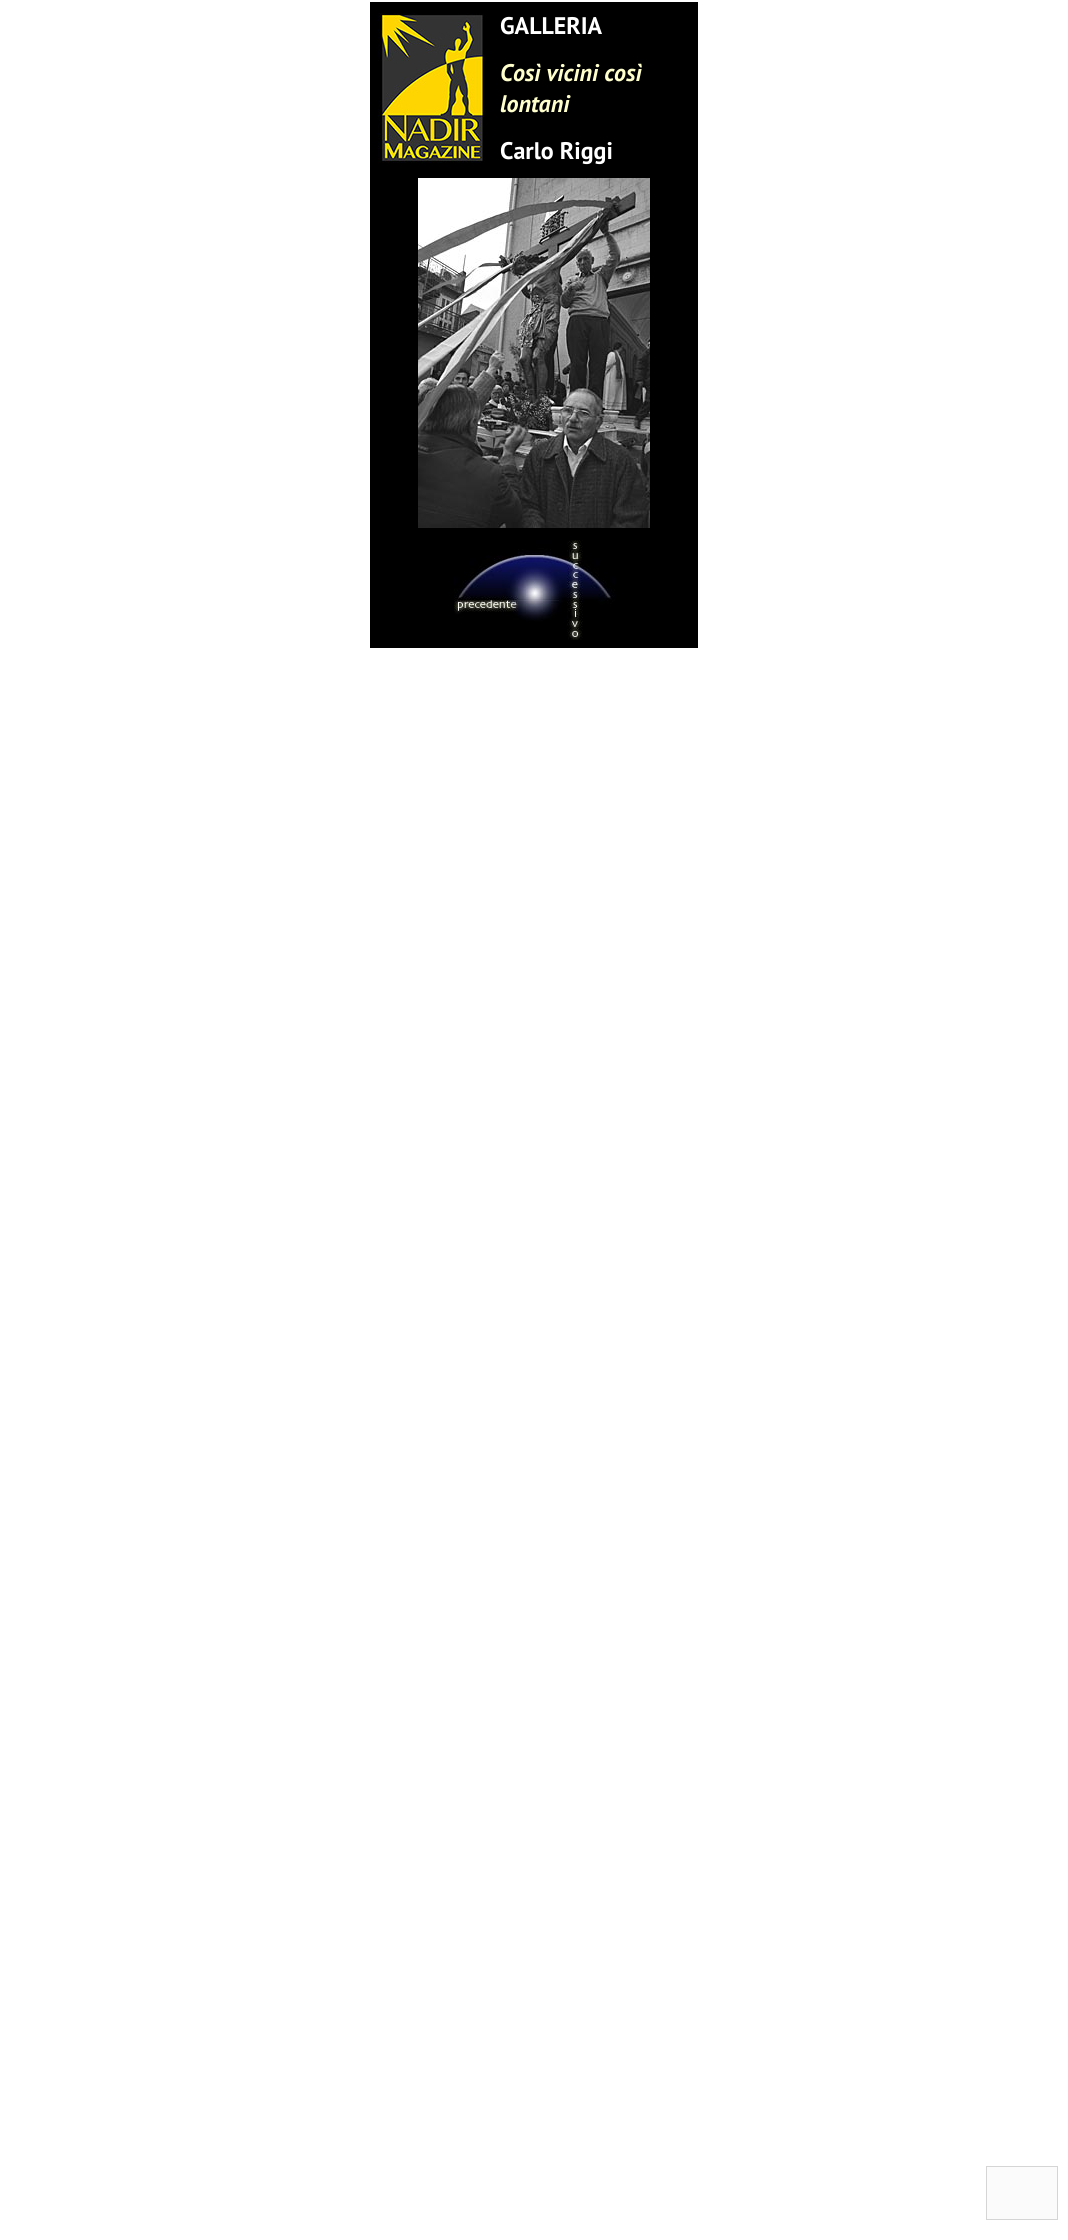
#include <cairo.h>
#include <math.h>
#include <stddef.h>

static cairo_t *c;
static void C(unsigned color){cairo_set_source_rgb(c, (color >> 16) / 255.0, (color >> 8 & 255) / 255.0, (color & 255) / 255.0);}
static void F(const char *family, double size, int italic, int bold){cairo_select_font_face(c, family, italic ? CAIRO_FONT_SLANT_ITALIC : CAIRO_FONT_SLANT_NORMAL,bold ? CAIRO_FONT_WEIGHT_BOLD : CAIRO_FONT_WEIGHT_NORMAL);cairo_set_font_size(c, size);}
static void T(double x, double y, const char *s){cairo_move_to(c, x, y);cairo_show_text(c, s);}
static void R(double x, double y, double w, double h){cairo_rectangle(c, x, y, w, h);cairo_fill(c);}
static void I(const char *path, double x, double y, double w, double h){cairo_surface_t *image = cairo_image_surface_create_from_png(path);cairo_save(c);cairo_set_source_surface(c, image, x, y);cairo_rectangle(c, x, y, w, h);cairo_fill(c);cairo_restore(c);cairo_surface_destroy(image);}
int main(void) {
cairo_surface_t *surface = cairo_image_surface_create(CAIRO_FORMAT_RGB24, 1068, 2240);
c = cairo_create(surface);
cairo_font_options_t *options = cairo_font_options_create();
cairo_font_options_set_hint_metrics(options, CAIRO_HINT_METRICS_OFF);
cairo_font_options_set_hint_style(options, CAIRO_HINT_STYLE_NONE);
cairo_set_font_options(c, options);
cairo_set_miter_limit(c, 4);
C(0xffffff);
cairo_paint(c);
C(0x000000);
R(370,2,328,646);
I("1.png",378,13,108,150);
F("PT Sans",24,0,1);
C(0xffffff);
T(500,34,"GALLERIA");
F("PT Sans",24,1,1);
C(0xffffcc);
T(500,81,"Così vicini così");
T(500,112,"lontani");
F("PT Sans",24,0,1);
C(0xffffff);
T(500,159,"Carlo Riggi");
I("2.png",418,178,232,350);
I("3.png",454,549,81,72);
I("4.png",535,540,80,100);
C(0xfbfbfb);
cairo_rectangle(c,986.5,2166.5,71,53);
cairo_fill_preserve(c);
C(0xd5d5d5);
cairo_set_line_width(c,1);
cairo_stroke(c);
cairo_surface_write_to_png(surface, "o.png");
cairo_font_options_destroy(options);
cairo_destroy(c);
cairo_surface_destroy(surface);
return 0;
}
